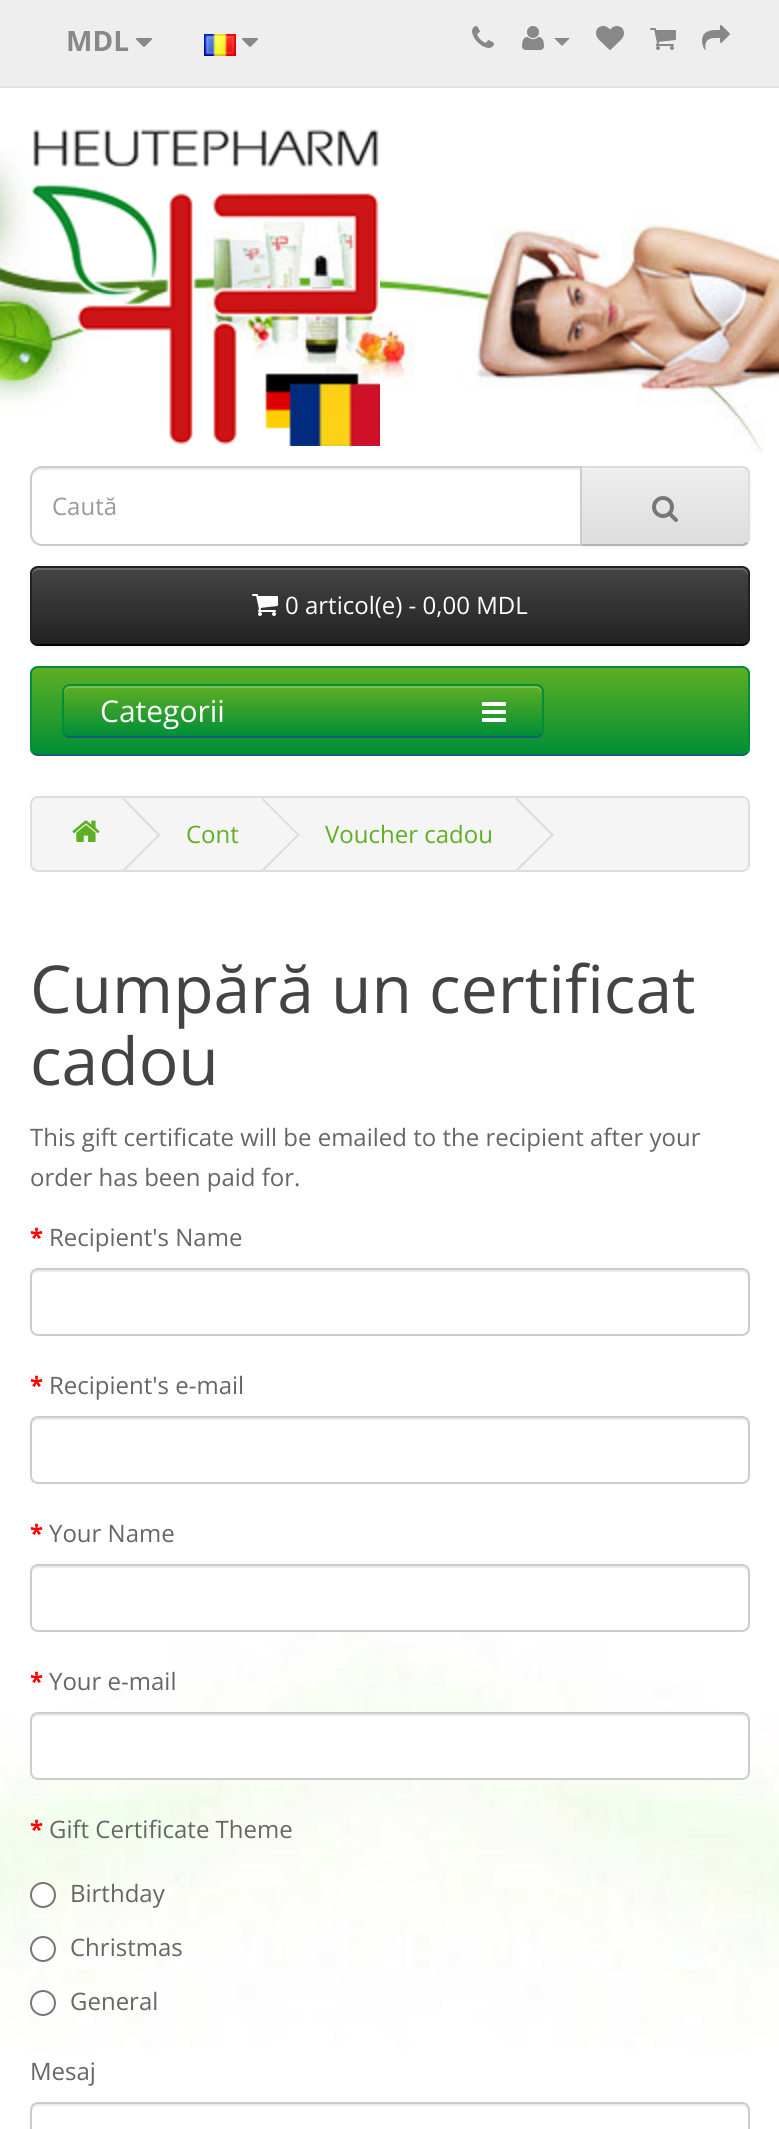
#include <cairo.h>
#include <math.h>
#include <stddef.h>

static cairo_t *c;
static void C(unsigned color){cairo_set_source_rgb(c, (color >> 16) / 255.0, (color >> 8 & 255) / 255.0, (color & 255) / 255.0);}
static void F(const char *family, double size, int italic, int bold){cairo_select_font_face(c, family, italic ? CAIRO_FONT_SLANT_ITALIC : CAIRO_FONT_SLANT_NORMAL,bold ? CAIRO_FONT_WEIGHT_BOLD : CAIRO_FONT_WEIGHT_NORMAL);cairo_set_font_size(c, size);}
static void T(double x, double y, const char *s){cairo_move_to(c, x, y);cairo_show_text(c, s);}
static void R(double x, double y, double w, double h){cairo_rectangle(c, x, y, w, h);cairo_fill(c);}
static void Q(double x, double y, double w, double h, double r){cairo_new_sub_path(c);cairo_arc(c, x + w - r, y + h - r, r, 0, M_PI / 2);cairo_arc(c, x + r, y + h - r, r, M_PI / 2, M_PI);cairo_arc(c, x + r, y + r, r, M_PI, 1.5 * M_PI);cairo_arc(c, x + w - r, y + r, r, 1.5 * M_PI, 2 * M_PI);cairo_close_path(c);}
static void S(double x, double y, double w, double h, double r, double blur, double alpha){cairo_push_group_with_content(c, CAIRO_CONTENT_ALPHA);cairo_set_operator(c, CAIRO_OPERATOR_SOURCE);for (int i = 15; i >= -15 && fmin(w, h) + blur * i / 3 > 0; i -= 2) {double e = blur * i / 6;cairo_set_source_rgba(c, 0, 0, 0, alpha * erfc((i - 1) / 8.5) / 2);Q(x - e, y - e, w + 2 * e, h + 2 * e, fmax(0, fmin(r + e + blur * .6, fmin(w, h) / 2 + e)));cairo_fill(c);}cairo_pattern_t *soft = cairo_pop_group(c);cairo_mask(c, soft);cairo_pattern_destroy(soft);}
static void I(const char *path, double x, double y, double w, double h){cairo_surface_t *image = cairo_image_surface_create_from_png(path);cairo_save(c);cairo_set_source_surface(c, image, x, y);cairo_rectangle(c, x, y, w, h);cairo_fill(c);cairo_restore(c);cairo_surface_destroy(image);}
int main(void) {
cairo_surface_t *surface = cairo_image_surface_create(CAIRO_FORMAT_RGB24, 779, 2129);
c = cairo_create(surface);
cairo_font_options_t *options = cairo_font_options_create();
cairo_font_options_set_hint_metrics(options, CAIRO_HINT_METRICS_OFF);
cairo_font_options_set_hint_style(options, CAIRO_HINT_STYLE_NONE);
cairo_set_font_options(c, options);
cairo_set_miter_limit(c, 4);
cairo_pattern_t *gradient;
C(0xffffff);
cairo_paint(c);
I("1.png",0,148,779,1904);
C(0xeeeeee);
R(0,0,779,86);
C(0xe2e2e2);
R(0,86,779,2);
F("Open Sans",28,0,1);
C(0x888888);
T(66,51,"MDL");
I("2.png",136,38,16,9);
I("3.png",204,34,32,22);
I("2.png",242,38,16,9);
I("4.png",472,26,22,22);
I("5.png",522,26,22,24);
cairo_new_path(c);
cairo_move_to(c,554,38);
cairo_line_to(c,570,38);
cairo_line_to(c,562,46);
cairo_close_path(c);
cairo_fill(c);
I("6.png",596,26,28,24);
I("7.png",650,28,26,22);
I("8.png",702,25,28,25);
I("9.png",31,129,349,317);
C(0x000000);
S(580,468,170,80,8,2,.05);
cairo_save(c);
cairo_new_path(c);
cairo_move_to(c,580,466);
cairo_line_to(c,742,466);
cairo_curve_to(c,746.5,466,750,469.5,750,474);
cairo_line_to(c,750,538);
cairo_curve_to(c,750,542.5,746.5,546,742,546);
cairo_line_to(c,580,546);
cairo_close_path(c);
cairo_clip(c);
gradient = cairo_pattern_create_linear(665,468,665,544);
cairo_pattern_add_color_stop_rgba(gradient,0,0.933,0.933,0.933,1);
cairo_pattern_add_color_stop_rgba(gradient,1,0.867,0.867,0.867,1);
cairo_set_source(c,gradient);
cairo_pattern_destroy(gradient);
R(582,468,168,76);
cairo_restore(c);
C(0xf1f1f1);
cairo_new_path(c);
cairo_move_to(c,582,470);
cairo_line_to(c,742,470);
cairo_curve_to(c,745,470,748,473,748,476);
cairo_line_to(c,748,474);
cairo_curve_to(c,748,471,745,468,742,468);
cairo_line_to(c,582,468);
cairo_close_path(c);
cairo_fill(c);
C(0xdddddd);
cairo_new_path(c);
cairo_move_to(c,580,466);
cairo_line_to(c,582,468);
cairo_line_to(c,743,468);
cairo_line_to(c,746,470);
cairo_line_to(c,748,468);
cairo_curve_to(c,746,467,744,466,742,466);
cairo_close_path(c);
cairo_fill(c);
cairo_new_path(c);
cairo_move_to(c,750,538);
cairo_line_to(c,750,474);
cairo_curve_to(c,750,472,749,470,748,468);
cairo_line_to(c,746,470);
cairo_curve_to(c,747,471,748,472,748,474);
cairo_line_to(c,748,538);
cairo_curve_to(c,748,540,747,541,746,542);
cairo_line_to(c,748,544);
cairo_curve_to(c,749,542,750,540,750,538);
cairo_close_path(c);
cairo_fill(c);
C(0xb3b3b3);
cairo_new_path(c);
cairo_move_to(c,742,546);
cairo_curve_to(c,744,546,746,545,748,544);
cairo_line_to(c,746,542);
cairo_line_to(c,743,544);
cairo_line_to(c,582,544);
cairo_line_to(c,580,546);
cairo_close_path(c);
cairo_fill(c);
C(0xffffff);
cairo_new_path(c);
cairo_move_to(c,42,466);
cairo_line_to(c,582,466);
cairo_line_to(c,582,546);
cairo_line_to(c,42,546);
cairo_curve_to(c,35.5,546,30,540.5,30,534);
cairo_line_to(c,30,478);
cairo_curve_to(c,30,471.5,35.5,466,42,466);
cairo_close_path(c);
cairo_fill(c);
C(0xececec);
cairo_new_path(c);
cairo_move_to(c,42,470);
cairo_line_to(c,580,470);
cairo_line_to(c,580,468);
cairo_line_to(c,42,468);
cairo_curve_to(c,36,468,32,472,32,478);
cairo_line_to(c,32,480);
cairo_curve_to(c,32,474,36,470,42,470);
cairo_close_path(c);
cairo_fill(c);
cairo_new_path(c);
cairo_move_to(c,42,467);
cairo_line_to(c,581,467);
cairo_line_to(c,581,545);
cairo_line_to(c,42,545);
cairo_curve_to(c,36,545,31,540,31,534);
cairo_line_to(c,31,478);
cairo_curve_to(c,31,472,36,467,42,467);
cairo_close_path(c);
C(0xcccccc);
cairo_stroke(c);
F("Open Sans",24,0,0);
C(0x999999);
T(52,515,"Caută");
I("10.png",652,496,26,26);
C(0x000000);
S(30,568,720,80,8,2,.05);
cairo_save(c);
Q(30,566,720,80,8);
cairo_clip(c);
gradient = cairo_pattern_create_linear(390,568,390,644);
cairo_pattern_add_color_stop_rgba(gradient,0,0.267,0.267,0.267,1);
cairo_pattern_add_color_stop_rgba(gradient,1,0.133,0.133,0.133,1);
cairo_set_source(c,gradient);
cairo_pattern_destroy(gradient);
R(30,568,720,76);
cairo_restore(c);
C(0x696969);
cairo_new_path(c);
cairo_move_to(c,38,570);
cairo_line_to(c,742,570);
cairo_curve_to(c,745,570,748,573,748,576);
cairo_line_to(c,748,574);
cairo_curve_to(c,748,571,745,568,742,568);
cairo_line_to(c,38,568);
cairo_curve_to(c,35,568,32,571,32,574);
cairo_line_to(c,32,576);
cairo_curve_to(c,32,573,35,570,38,570);
cairo_close_path(c);
cairo_fill(c);
cairo_new_path(c);
cairo_move_to(c,747,643);
cairo_curve_to(c,745.5,644.5,744,645,742,645);
cairo_line_to(c,38,645);
cairo_curve_to(c,36,645,34.5,644.5,33,643);
C(0x000000);
cairo_stroke(c);
cairo_new_path(c);
cairo_move_to(c,33,643);
cairo_curve_to(c,31.5,641.5,31,640,31,638);
cairo_line_to(c,31,574);
cairo_curve_to(c,31,572,31.5,570.5,33,569);
cairo_curve_to(c,34.5,567.5,36,567,38,567);
cairo_line_to(c,742,567);
cairo_curve_to(c,744,567,745.5,567.5,747,569);
cairo_curve_to(c,748.5,570.5,749,572,749,574);
cairo_line_to(c,749,638);
cairo_curve_to(c,749,640,748.5,641.5,747,643);
C(0x222222);
cairo_stroke(c);
I("11.png",252,594,26,22);
C(0xffffff);
T(285,614,"0 articol(e) - 0,00 MDL");
cairo_save(c);
Q(30,666,720,90,8);
cairo_clip(c);
gradient = cairo_pattern_create_linear(390,668,390,754);
cairo_pattern_add_color_stop_rgba(gradient,0,0.369,0.686,0.141,1);
cairo_pattern_add_color_stop_rgba(gradient,1,0,0.557,0.212,1);
cairo_set_source(c,gradient);
cairo_pattern_destroy(gradient);
R(30,668,720,86);
cairo_restore(c);
cairo_new_path(c);
cairo_move_to(c,747,753);
cairo_curve_to(c,745.5,754.5,744,755,742,755);
cairo_line_to(c,38,755);
cairo_curve_to(c,36,755,34.5,754.5,33,753);
C(0x145e7a);
cairo_stroke(c);
cairo_new_path(c);
cairo_move_to(c,33,753);
cairo_curve_to(c,31.5,751.5,31,750,31,748);
cairo_line_to(c,31,674);
cairo_curve_to(c,31,672,31.5,670.5,33,669);
cairo_curve_to(c,34.5,667.5,36,667,38,667);
cairo_line_to(c,742,667);
cairo_curve_to(c,744,667,745.5,667.5,747,669);
cairo_curve_to(c,748.5,670.5,749,672,749,674);
cairo_line_to(c,749,748);
cairo_curve_to(c,749,750,748.5,751.5,747,753);
C(0x008e36);
cairo_stroke(c);
cairo_save(c);
Q(62,684,482,54,8);
cairo_clip(c);
gradient = cairo_pattern_create_linear(303,686,303,736);
cairo_pattern_add_color_stop_rgba(gradient,0,0.369,0.686,0.141,1);
cairo_pattern_add_color_stop_rgba(gradient,1,0,0.557,0.212,1);
cairo_set_source(c,gradient);
cairo_pattern_destroy(gradient);
R(62,686,482,50);
cairo_restore(c);
cairo_set_source_rgba(c,1,1,1,0.2);
cairo_new_path(c);
cairo_move_to(c,70,688);
cairo_line_to(c,536,688);
cairo_curve_to(c,539,688,542,691,542,694);
cairo_curve_to(c,542,690,541,686,536,686);
cairo_line_to(c,70,686);
cairo_curve_to(c,65,686,64,690,64,694);
cairo_curve_to(c,64,691,67,688,70,688);
cairo_close_path(c);
cairo_fill(c);
cairo_new_path(c);
cairo_move_to(c,541,735);
cairo_curve_to(c,539.5,736.5,538,737,536,737);
cairo_line_to(c,70,737);
cairo_curve_to(c,68,737,66.5,736.5,65,735);
C(0x145e7a);
cairo_stroke(c);
cairo_new_path(c);
cairo_move_to(c,65,735);
cairo_curve_to(c,63.5,733.5,63,732,63,730);
cairo_line_to(c,63,692);
cairo_curve_to(c,63,690,63.5,688.5,65,687);
cairo_curve_to(c,66.5,685.5,68,685,70,685);
cairo_line_to(c,536,685);
cairo_curve_to(c,538,685,539.5,685.5,541,687);
cairo_curve_to(c,542.5,688.5,543,690,543,692);
cairo_line_to(c,543,730);
cairo_curve_to(c,543,732,542.5,733.5,541,735);
C(0x008e36);
cairo_stroke(c);
F("Open Sans",30,0,0);
C(0xffffff);
T(100,722,"Categorii");
I("12.png",482,702,24,20);
C(0xf5f5f5);
Q(31,797,718,74,7);
cairo_fill_preserve(c);
C(0xdddddd);
cairo_stroke(c);
I("13.png",72,820,28,22);
cairo_new_path(c);
cairo_move_to(c,122.5,799.5);
cairo_line_to(c,124,798);
cairo_line_to(c,160.5,835);
cairo_line_to(c,159,836.5);
cairo_close_path(c);
cairo_fill(c);
cairo_new_path(c);
cairo_move_to(c,122.5,870);
cairo_line_to(c,159,833.5);
cairo_line_to(c,160.5,835);
cairo_line_to(c,124,871.5);
cairo_close_path(c);
cairo_fill(c);
F("Open Sans",24,0,0);
C(0x5eaf24);
T(186,843,"Cont");
C(0xdddddd);
cairo_new_path(c);
cairo_move_to(c,261.5,799.5);
cairo_line_to(c,263,798);
cairo_line_to(c,299.5,835);
cairo_line_to(c,298.5,836.5);
cairo_close_path(c);
cairo_fill(c);
cairo_new_path(c);
cairo_move_to(c,261.5,870);
cairo_line_to(c,298.5,833.5);
cairo_line_to(c,299.5,835);
cairo_line_to(c,263,871.5);
cairo_close_path(c);
cairo_fill(c);
C(0x5eaf24);
T(325,843,"Voucher cadou");
C(0xdddddd);
cairo_new_path(c);
cairo_move_to(c,515.5,799.5);
cairo_line_to(c,517,798);
cairo_line_to(c,554,835);
cairo_line_to(c,552.5,836.5);
cairo_close_path(c);
cairo_fill(c);
cairo_new_path(c);
cairo_move_to(c,515.5,870);
cairo_line_to(c,552.5,833.5);
cairo_line_to(c,554,835);
cairo_line_to(c,517,871.5);
cairo_close_path(c);
cairo_fill(c);
F("Open Sans",66,0,0);
C(0x444444);
T(30,1013,"Cumpără un certificat");
T(30,1085,"cadou");
F("Open Sans",24,0,0);
C(0x666666);
T(30,1146,"This gift certificate will be emailed to the recipient after your");
T(30,1186,"order has been paid for.");
F("Open Sans",24,0,1);
C(0xff0000);
T(30,1246,"*");
F("Open Sans",24,0,0);
C(0x666666);
T(49,1246,"Recipient's Name");
C(0xececec);
cairo_new_path(c);
cairo_move_to(c,38,1272);
cairo_line_to(c,742,1272);
cairo_curve_to(c,745,1272,748,1275,748,1278);
cairo_line_to(c,748,1276);
cairo_curve_to(c,748,1273,745,1270,742,1270);
cairo_line_to(c,38,1270);
cairo_curve_to(c,35,1270,32,1273,32,1276);
cairo_line_to(c,32,1278);
cairo_curve_to(c,32,1275,35,1272,38,1272);
cairo_close_path(c);
cairo_fill(c);
Q(31,1269,718,66,7);
C(0xcccccc);
cairo_stroke(c);
F("Open Sans",24,0,1);
C(0xff0000);
T(30,1394,"*");
F("Open Sans",24,0,0);
C(0x666666);
T(49,1394,"Recipient's e-mail");
C(0xececec);
cairo_new_path(c);
cairo_move_to(c,38,1420);
cairo_line_to(c,742,1420);
cairo_curve_to(c,745,1420,748,1423,748,1426);
cairo_line_to(c,748,1424);
cairo_curve_to(c,748,1421,745,1418,742,1418);
cairo_line_to(c,38,1418);
cairo_curve_to(c,35,1418,32,1421,32,1424);
cairo_line_to(c,32,1426);
cairo_curve_to(c,32,1423,35,1420,38,1420);
cairo_close_path(c);
cairo_fill(c);
Q(31,1417,718,66,7);
C(0xcccccc);
cairo_stroke(c);
F("Open Sans",24,0,1);
C(0xff0000);
T(30,1542,"*");
F("Open Sans",24,0,0);
C(0x666666);
T(49,1542,"Your Name");
C(0xffffff);
Q(30,1564,720,68,8);
cairo_fill(c);
C(0xececec);
cairo_new_path(c);
cairo_move_to(c,38,1568);
cairo_line_to(c,742,1568);
cairo_curve_to(c,745,1568,748,1571,748,1574);
cairo_line_to(c,748,1572);
cairo_curve_to(c,748,1569,745,1566,742,1566);
cairo_line_to(c,38,1566);
cairo_curve_to(c,35,1566,32,1569,32,1572);
cairo_line_to(c,32,1574);
cairo_curve_to(c,32,1571,35,1568,38,1568);
cairo_close_path(c);
cairo_fill(c);
Q(31,1565,718,66,7);
C(0xcccccc);
cairo_stroke(c);
F("Open Sans",24,0,1);
C(0xff0000);
T(30,1690,"*");
F("Open Sans",24,0,0);
C(0x666666);
T(49,1690,"Your e-mail");
C(0xffffff);
Q(30,1712,720,68,8);
cairo_fill(c);
C(0xececec);
cairo_new_path(c);
cairo_move_to(c,38,1716);
cairo_line_to(c,742,1716);
cairo_curve_to(c,745,1716,748,1719,748,1722);
cairo_line_to(c,748,1720);
cairo_curve_to(c,748,1717,745,1714,742,1714);
cairo_line_to(c,38,1714);
cairo_curve_to(c,35,1714,32,1717,32,1720);
cairo_line_to(c,32,1722);
cairo_curve_to(c,32,1719,35,1716,38,1716);
cairo_close_path(c);
cairo_fill(c);
Q(31,1713,718,66,7);
C(0xcccccc);
cairo_stroke(c);
F("Open Sans",24,0,1);
C(0xff0000);
T(30,1838,"*");
F("Open Sans",24,0,0);
C(0x666666);
T(49,1838,"Gift Certificate Theme");
C(0xffffff);
cairo_new_path(c);
cairo_arc(c,43,1895,12,0,2 * M_PI);
cairo_fill_preserve(c);
C(0x767676);
cairo_stroke(c);
C(0x666666);
T(70,1902,"Birthday");
C(0xffffff);
cairo_new_path(c);
cairo_arc(c,43,1949,12,0,2 * M_PI);
cairo_fill_preserve(c);
C(0x767676);
cairo_stroke(c);
C(0x666666);
T(70,1956,"Christmas");
C(0xffffff);
cairo_new_path(c);
cairo_arc(c,43,2003,12,0,2 * M_PI);
cairo_fill_preserve(c);
C(0x767676);
cairo_stroke(c);
C(0x666666);
T(70,2010,"General");
T(30,2080,"Mesaj");
C(0xececec);
cairo_new_path(c);
cairo_move_to(c,38,2106);
cairo_line_to(c,742,2106);
cairo_curve_to(c,745,2106,748,2109,748,2112);
cairo_line_to(c,748,2110);
cairo_curve_to(c,748,2107,745,2104,742,2104);
cairo_line_to(c,38,2104);
cairo_curve_to(c,35,2104,32,2107,32,2110);
cairo_line_to(c,32,2112);
cairo_curve_to(c,32,2109,35,2106,38,2106);
cairo_close_path(c);
cairo_fill(c);
Q(31,2103,718,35,7);
C(0xcccccc);
cairo_stroke(c);
cairo_surface_write_to_png(surface, "o.png");
cairo_font_options_destroy(options);
cairo_destroy(c);
cairo_surface_destroy(surface);
return 0;
}
